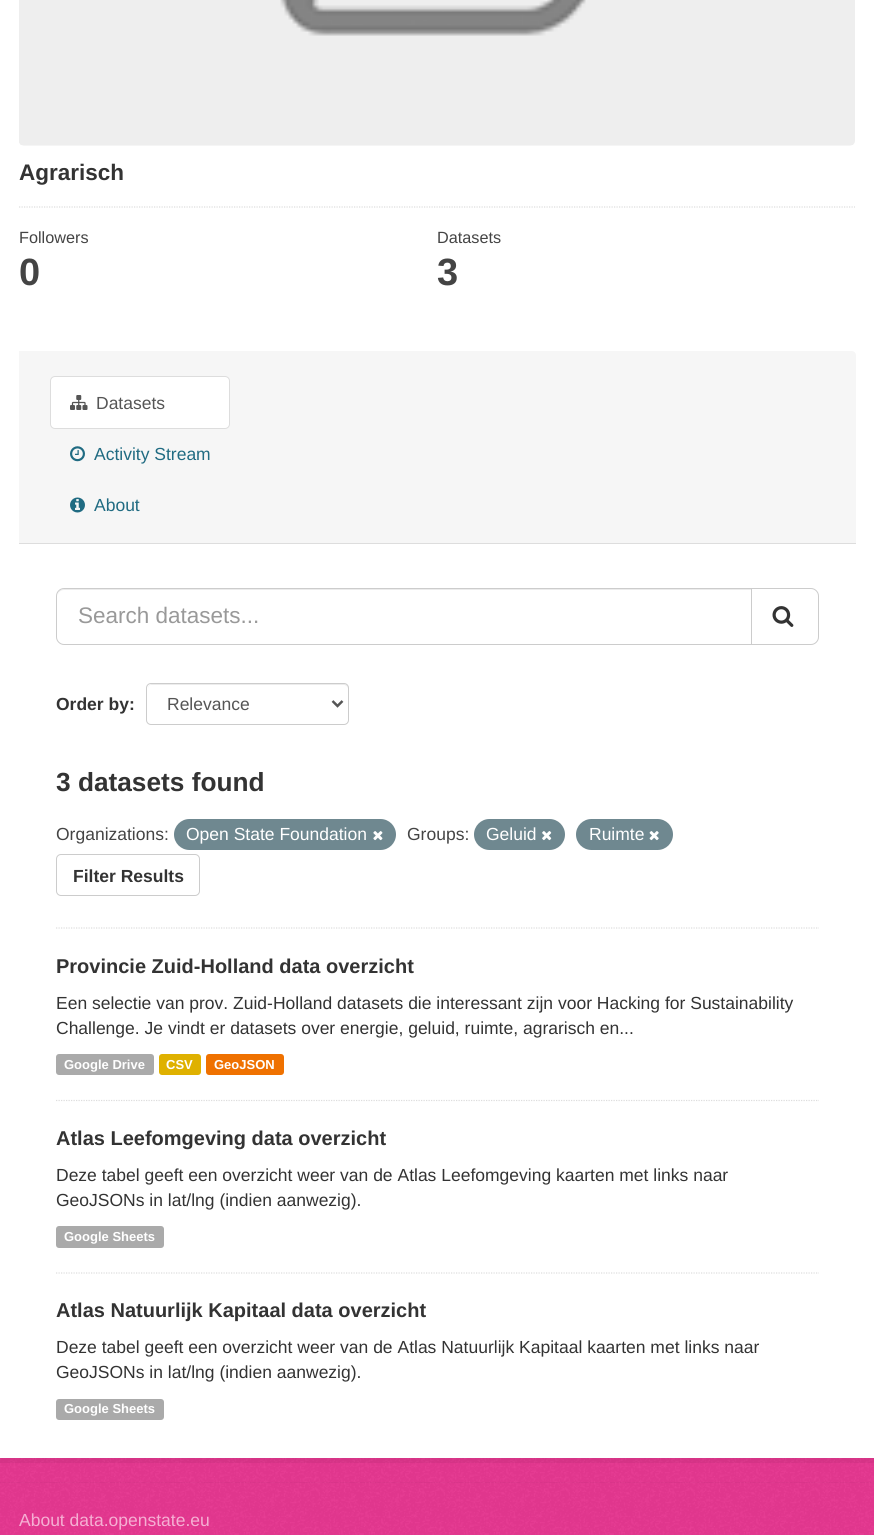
#include <cairo.h>
#include <math.h>
#include <stddef.h>

static cairo_t *c;
static void C(unsigned color){cairo_set_source_rgb(c, (color >> 16) / 255.0, (color >> 8 & 255) / 255.0, (color & 255) / 255.0);}
static void F(const char *family, double size, int italic, int bold){cairo_select_font_face(c, family, italic ? CAIRO_FONT_SLANT_ITALIC : CAIRO_FONT_SLANT_NORMAL,bold ? CAIRO_FONT_WEIGHT_BOLD : CAIRO_FONT_WEIGHT_NORMAL);cairo_set_font_size(c, size);}
static void T(double x, double y, const char *s){cairo_move_to(c, x, y);cairo_show_text(c, s);}
static void R(double x, double y, double w, double h){cairo_rectangle(c, x, y, w, h);cairo_fill(c);}
static void Q(double x, double y, double w, double h, double r){cairo_new_sub_path(c);cairo_arc(c, x + w - r, y + h - r, r, 0, M_PI / 2);cairo_arc(c, x + r, y + h - r, r, M_PI / 2, M_PI);cairo_arc(c, x + r, y + r, r, M_PI, 1.5 * M_PI);cairo_arc(c, x + w - r, y + r, r, 1.5 * M_PI, 2 * M_PI);cairo_close_path(c);}
static void I(const char *path, double x, double y, double w, double h){cairo_surface_t *image = cairo_image_surface_create_from_png(path);cairo_save(c);cairo_set_source_surface(c, image, x, y);cairo_rectangle(c, x, y, w, h);cairo_fill(c);cairo_restore(c);cairo_surface_destroy(image);}
int main(void) {
cairo_surface_t *surface = cairo_image_surface_create(CAIRO_FORMAT_RGB24, 874, 1535);
c = cairo_create(surface);
cairo_font_options_t *options = cairo_font_options_create();
cairo_font_options_set_hint_metrics(options, CAIRO_HINT_METRICS_OFF);
cairo_font_options_set_hint_style(options, CAIRO_HINT_STYLE_NONE);
cairo_set_font_options(c, options);
cairo_set_miter_limit(c, 4);
C(0xe73892);
cairo_paint(c);
I("1.png",0,1458,874,25);
cairo_rectangle(c,-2.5,-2.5,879,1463);
cairo_set_source_rgba(c,0,0,0,0.05);
cairo_set_line_width(c,5);
cairo_stroke(c);
C(0xffffff);
R(0,0,874,1458);
I("2.png",19,0,836,146);
F("Liberation Sans",22.5,0,1);
C(0x333333);
T(19,180,"Agrarisch");
cairo_new_path(c);
cairo_move_to(c,19,207);
cairo_line_to(c,855,207);
C(0xdddddd);
cairo_set_line_width(c,1.2);
cairo_set_dash(c,(double[]){1.25,1.25},2,0);
cairo_stroke(c);
F("Liberation Sans",16.25,0,0);
C(0x444444);
T(19,243,"Followers");
F("Liberation Sans",38,0,1);
T(19,285,"0");
F("Liberation Sans",16.25,0,0);
T(437,243,"Datasets");
F("Liberation Sans",38,0,1);
T(437,285,"3");
C(0xf6f6f6);
cairo_new_path(c);
cairo_move_to(c,19,351);
cairo_line_to(c,852,351);
cairo_curve_to(c,854,351,856,353,856,355);
cairo_line_to(c,856,544);
cairo_line_to(c,19,544);
cairo_close_path(c);
cairo_fill(c);
C(0xdddddd);
R(19,543,837,1);
C(0xffffff);
Q(50.5,376.5,179,52,4.5);
cairo_fill_preserve(c);
C(0xdddddd);
cairo_set_line_width(c,1);
cairo_set_dash(c,NULL,0,0);
cairo_stroke(c);
I("3.png",70,395,18,15);
F("Liberation Sans",17.5,0,0);
C(0x555555);
T(96,409,"Datasets");
I("4.png",70,446,15,16);
C(0x206b82);
T(94,460,"Activity Stream");
I("5.png",70,497,15,16);
T(94,511,"About");
cairo_new_path(c);
cairo_move_to(c,56,928);
cairo_line_to(c,819,928);
C(0xdddddd);
cairo_set_line_width(c,1.2);
cairo_set_dash(c,(double[]){1.25,1.25},2,0);
cairo_stroke(c);
C(0xececec);
cairo_new_path(c);
cairo_move_to(c,64,590);
cairo_line_to(c,751,590);
cairo_line_to(c,751,589);
cairo_line_to(c,64,589);
cairo_curve_to(c,60,589,58,592,58,596);
cairo_curve_to(c,58,593,60,590,64,590);
cairo_close_path(c);
cairo_fill(c);
cairo_new_path(c);
cairo_move_to(c,64,588.5);
cairo_line_to(c,752.5,588.5);
cairo_line_to(c,752.5,644.5);
cairo_line_to(c,64,644.5);
cairo_curve_to(c,60,644.5,56.5,641,56.5,637);
cairo_line_to(c,56.5,596);
cairo_curve_to(c,56.5,592,60,588.5,64,588.5);
cairo_close_path(c);
C(0xcccccc);
cairo_set_line_width(c,1);
cairo_set_dash(c,NULL,0,0);
cairo_stroke(c);
F("Liberation Sans",22.5,0,0);
C(0x999999);
T(78,623,"Search datasets...");
C(0xffffff);
cairo_new_path(c);
cairo_move_to(c,751.5,588.5);
cairo_line_to(c,811,588.5);
cairo_curve_to(c,815,588.5,818.5,592,818.5,596);
cairo_line_to(c,818.5,637);
cairo_curve_to(c,818.5,641,815,644.5,811,644.5);
cairo_line_to(c,751.5,644.5);
cairo_close_path(c);
cairo_fill_preserve(c);
C(0xcccccc);
cairo_stroke(c);
I("6.png",772,606,22,21);
F("Liberation Sans",17.5,0,1);
C(0x333333);
T(56,710,"Order by:");
C(0xececec);
cairo_new_path(c);
cairo_move_to(c,151,685);
cairo_line_to(c,344,685);
cairo_curve_to(c,346,685,348,687,348,689);
cairo_line_to(c,348,688);
cairo_curve_to(c,348,686,346,684,344,684);
cairo_line_to(c,152,684);
cairo_curve_to(c,150,684,148,686,148,688);
cairo_line_to(c,148,689);
cairo_curve_to(c,148,687,149,685,151,685);
cairo_close_path(c);
cairo_fill(c);
Q(146.5,683.5,202,41,4.5);
C(0xcccccc);
cairo_stroke(c);
cairo_new_path(c);
cairo_move_to(c,332.5,701);
cairo_line_to(c,337.5,706);
cairo_line_to(c,342.5,701);
C(0x555555);
cairo_set_line_width(c,2.5);
cairo_stroke(c);
F("Liberation Sans",17.5,0,0);
T(167,710,"Relevance");
F("Liberation Sans",26.25,0,1);
C(0x333333);
T(56,791,"3 datasets found");
F("Liberation Sans",17.5,0,0);
C(0x444444);
T(56,840,"Organizations:");
C(0x6f8890);
Q(174,819,222,31,15.5);
cairo_fill(c);
C(0xffffff);
T(186,840,"Open State Foundation");
I("7.png",373,831,10,10);
C(0x444444);
T(407,840,"Groups:");
C(0x6f8890);
Q(474,819,91,31,15.5);
cairo_fill(c);
C(0xffffff);
T(486,840,"Geluid");
I("8.png",542,831,10,10);
C(0x6f8890);
Q(576,819,97,31,15.5);
cairo_fill(c);
C(0xffffff);
T(589,840,"Ruimte");
I("9.png",649,831,10,10);
Q(56.5,854.5,143,41,4.5);
C(0xcccccc);
cairo_set_line_width(c,1);
cairo_stroke(c);
F("Liberation Sans",17.5,0,1);
C(0x333333);
T(73,882,"Filter Results");
cairo_new_path(c);
cairo_move_to(c,56,1100.5);
cairo_line_to(c,819,1100.5);
C(0xdddddd);
cairo_set_line_width(c,1.2);
cairo_set_dash(c,(double[]){1.25,1.25},2,0);
cairo_stroke(c);
F("Liberation Sans",20,0,1);
C(0x333333);
T(56,973,"Provincie Zuid-Holland data overzicht");
F("Liberation Sans",17.5,0,0);
T(56,1009,"Een selectie van prov. Zuid-Holland datasets die interessant zijn voor Hacking for Sustainability");
T(56,1034,"Challenge. Je vindt er datasets over energie, geluid, ruimte, agrarisch en...");
C(0xaaaaaa);
Q(56,1054,98,21,3);
cairo_fill(c);
F("Liberation Sans",13,0,1);
C(0xffffff);
T(64,1069,"Google Drive");
C(0xdfb100);
Q(159,1054,42,21,3);
cairo_fill(c);
C(0xffffff);
T(166,1069,"CSV");
C(0xef7100);
Q(206,1054,78,21,3);
cairo_fill(c);
C(0xffffff);
T(214,1069,"GeoJSON");
cairo_new_path(c);
cairo_move_to(c,56,1273);
cairo_line_to(c,819,1273);
C(0xdddddd);
cairo_stroke(c);
F("Liberation Sans",20,0,1);
C(0x333333);
T(56,1145,"Atlas Leefomgeving data overzicht");
F("Liberation Sans",17.5,0,0);
T(56,1181,"Deze tabel geeft een overzicht weer van de Atlas Leefomgeving kaarten met links naar");
T(56,1206,"GeoJSONs in lat/lng (indien aanwezig).");
C(0xaaaaaa);
Q(56,1226,108,22,3);
cairo_fill(c);
F("Liberation Sans",13,0,1);
C(0xffffff);
T(64,1241,"Google Sheets");
F("Liberation Sans",20,0,1);
C(0x333333);
T(56,1317,"Atlas Natuurlijk Kapitaal data overzicht");
F("Liberation Sans",17.5,0,0);
T(56,1353,"Deze tabel geeft een overzicht weer van de Atlas Natuurlijk Kapitaal kaarten met links naar");
T(56,1378,"GeoJSONs in lat/lng (indien aanwezig).");
C(0xaaaaaa);
Q(56,1399,108,21,3);
cairo_fill(c);
F("Liberation Sans",13,0,1);
C(0xffffff);
T(64,1413,"Google Sheets");
I("10.png",0,1482,874,53);
F("Liberation Sans",17.5,0,0);
C(0xf5afd3);
T(19,1526,"About data.openstate.eu");
cairo_surface_write_to_png(surface, "o.png");
cairo_font_options_destroy(options);
cairo_destroy(c);
cairo_surface_destroy(surface);
return 0;
}
